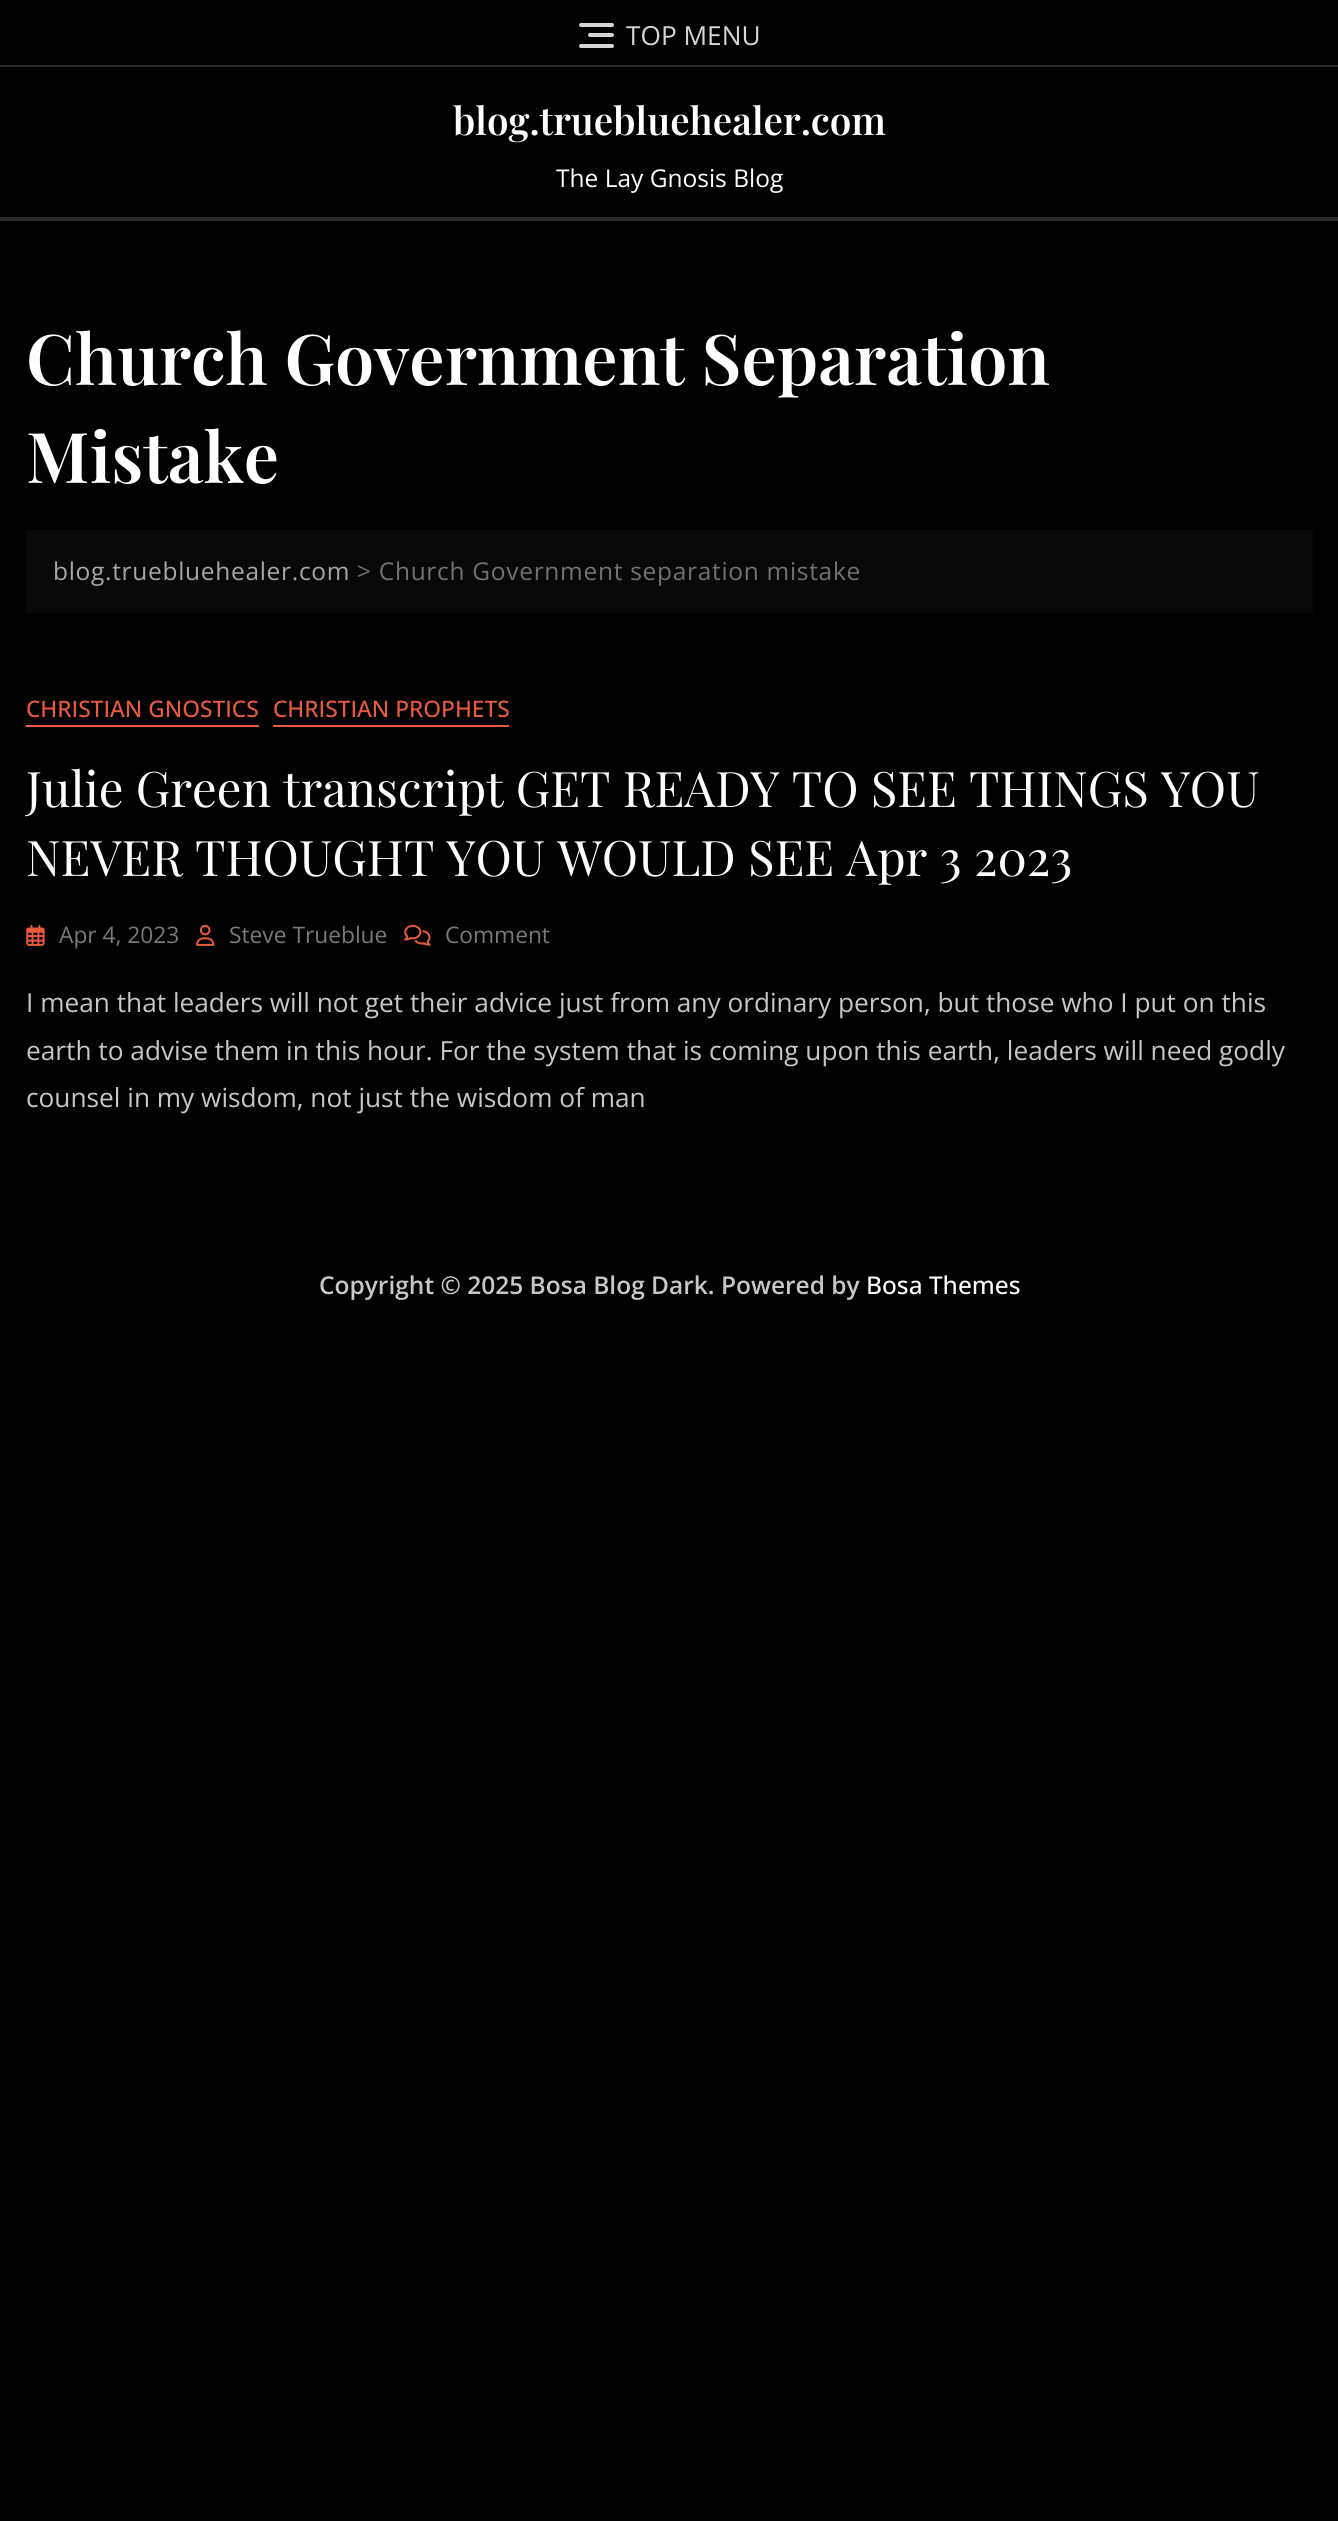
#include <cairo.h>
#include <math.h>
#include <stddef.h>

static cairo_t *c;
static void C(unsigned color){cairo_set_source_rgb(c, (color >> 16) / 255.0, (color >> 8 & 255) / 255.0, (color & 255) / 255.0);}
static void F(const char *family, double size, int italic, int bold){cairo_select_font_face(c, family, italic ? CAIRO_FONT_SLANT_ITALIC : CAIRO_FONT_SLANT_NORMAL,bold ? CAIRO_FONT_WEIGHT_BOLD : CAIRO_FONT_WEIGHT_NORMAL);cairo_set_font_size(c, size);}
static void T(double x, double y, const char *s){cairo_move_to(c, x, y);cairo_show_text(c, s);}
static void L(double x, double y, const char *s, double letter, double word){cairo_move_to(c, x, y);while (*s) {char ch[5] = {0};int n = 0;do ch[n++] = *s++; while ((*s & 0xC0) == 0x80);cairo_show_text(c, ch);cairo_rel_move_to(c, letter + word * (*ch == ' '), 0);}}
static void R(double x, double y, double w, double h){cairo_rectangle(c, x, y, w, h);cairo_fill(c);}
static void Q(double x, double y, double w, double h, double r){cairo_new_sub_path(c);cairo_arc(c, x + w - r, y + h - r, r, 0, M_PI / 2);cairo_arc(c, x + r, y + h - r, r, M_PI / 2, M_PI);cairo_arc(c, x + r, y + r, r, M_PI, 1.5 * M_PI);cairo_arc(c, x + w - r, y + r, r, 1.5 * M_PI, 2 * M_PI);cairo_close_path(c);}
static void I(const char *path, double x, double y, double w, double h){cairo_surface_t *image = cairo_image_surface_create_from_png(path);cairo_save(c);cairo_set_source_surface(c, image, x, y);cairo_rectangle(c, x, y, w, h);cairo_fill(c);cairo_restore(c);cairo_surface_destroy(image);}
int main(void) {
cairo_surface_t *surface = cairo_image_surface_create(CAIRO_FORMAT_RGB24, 1338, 2521);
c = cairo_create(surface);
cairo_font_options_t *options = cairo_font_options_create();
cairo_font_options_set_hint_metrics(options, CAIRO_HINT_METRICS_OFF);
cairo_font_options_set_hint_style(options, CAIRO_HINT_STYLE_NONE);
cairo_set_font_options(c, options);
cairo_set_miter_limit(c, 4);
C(0x000000);
cairo_paint(c);
C(0x292929);
R(0,65,1338,2);
C(0xd5d5d5);
Q(588,33,26,4,2);
cairo_fill(c);
Q(579,23,35,4,2);
cairo_fill(c);
Q(579,44,35,4,2);
cairo_fill(c);
F("Open Sans",26.25,0,0);
T(626,45,"TOP MENU");
F("Playfair Display SemiBold",38.5,0,0);
C(0xffffff);
T(453,135,"blog.truebluehealer.com");
F("Open Sans",24.5,0,0);
T(556,187,"The Lay Gnosis Blog");
C(0x292929);
R(0,217,1338,4);
F("Playfair Display SemiBold",70,0,0);
C(0xffffff);
T(26,385,"Church Government Separation");
T(26,483,"Mistake");
C(0x080808);
R(26,530,1287,83);
F("Open Sans",24.5,0,0);
C(0xa6a6a6);
L(53,580,"blog.truebluehealer.com",.7,0);
C(0x717171);
L(357,580,"> Church Government separation mistake",.7,0);
F("Open Sans Medium",22.75,0,0);
C(0xeb5a3e);
T(26,717,"CHRISTIAN GNOSTICS");
R(26,725,233,2);
T(273,717,"CHRISTIAN PROPHETS");
R(273,725,236,2);
F("Playfair Display",49,0,0);
C(0xffffff);
T(26,807,"Julie Green transcript GET READY TO SEE THINGS YOU");
T(26,876,"NEVER THOUGHT YOU WOULD SEE Apr 3 2023");
I("1.png",26,924,19,22);
F("Open Sans",22.75,0,0);
C(0x7a7a7a);
T(59,943,"Apr 4, 2023");
I("2.png",196,924,19,22);
T(229,943,"Steve Trueblue");
I("3.png",404,924,27,22);
T(445,943,"Comment");
F("Open Sans",26.25,0,0);
C(0xc7c7c7);
T(26,1012,"I mean that leaders will not get their advice just from any ordinary person, but those who I put on this");
T(26,1060,"earth to advise them in this hour. For the system that is coming upon this earth, leaders will need godly");
T(26,1107,"counsel in my wisdom, not just the wisdom of man");
F("Open Sans SemiBold",24.5,0,0);
T(319,1294,"Copyright © 2025 Bosa Blog Dark. Powered by");
F("Open Sans Medium",24.5,0,0);
C(0xffffff);
T(866,1294,"Bosa Themes");
cairo_surface_write_to_png(surface, "o.png");
cairo_font_options_destroy(options);
cairo_destroy(c);
cairo_surface_destroy(surface);
return 0;
}
